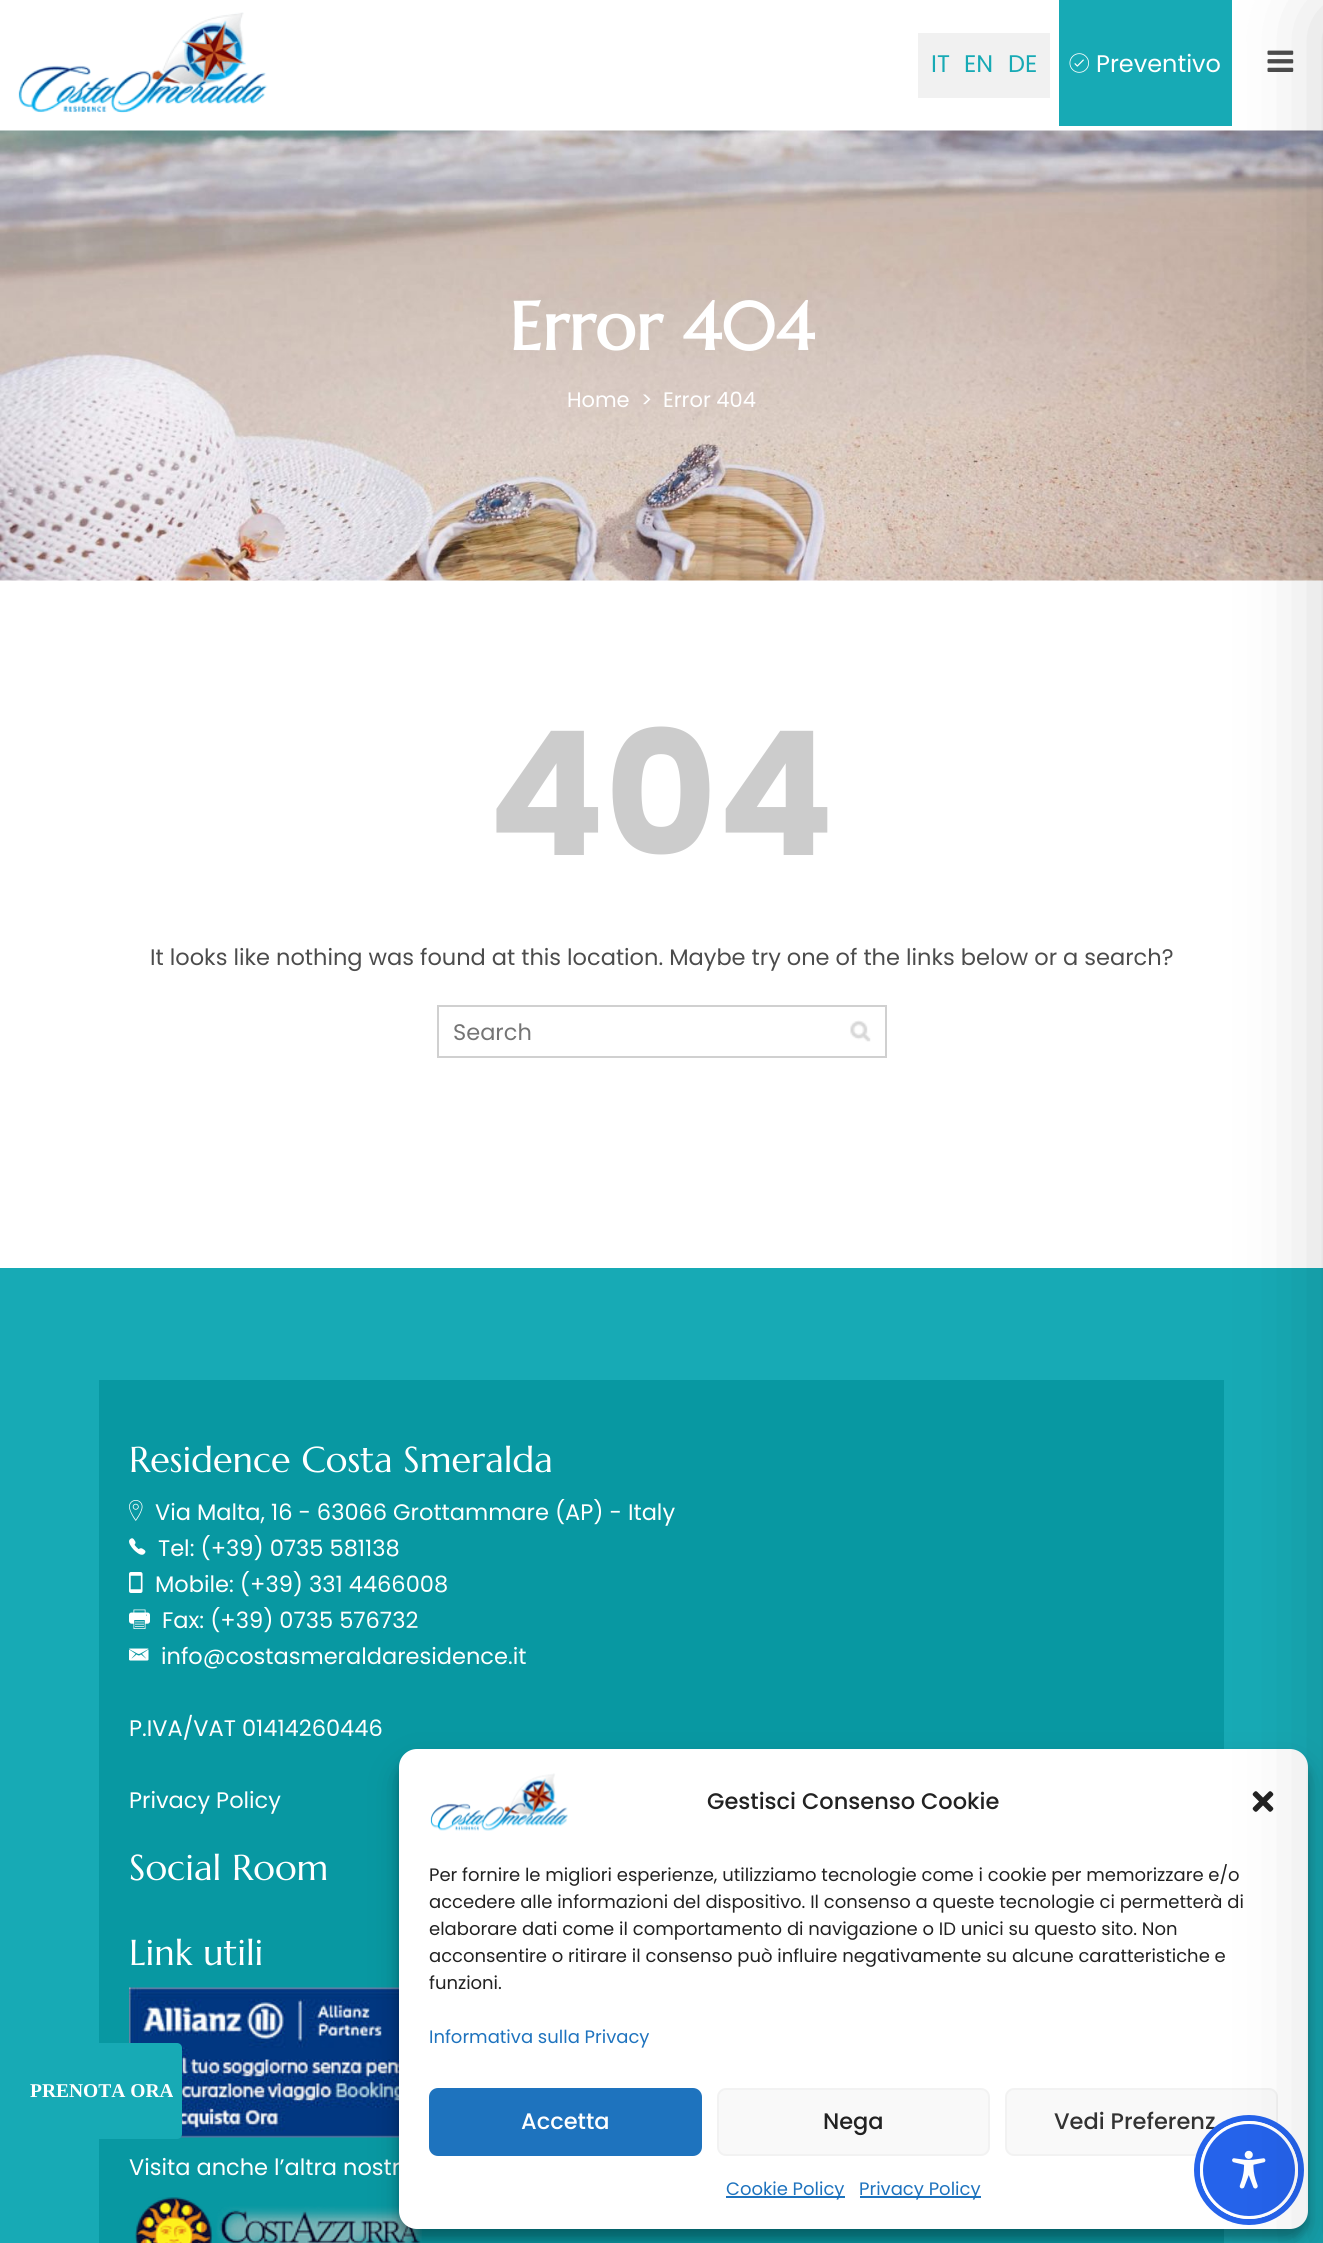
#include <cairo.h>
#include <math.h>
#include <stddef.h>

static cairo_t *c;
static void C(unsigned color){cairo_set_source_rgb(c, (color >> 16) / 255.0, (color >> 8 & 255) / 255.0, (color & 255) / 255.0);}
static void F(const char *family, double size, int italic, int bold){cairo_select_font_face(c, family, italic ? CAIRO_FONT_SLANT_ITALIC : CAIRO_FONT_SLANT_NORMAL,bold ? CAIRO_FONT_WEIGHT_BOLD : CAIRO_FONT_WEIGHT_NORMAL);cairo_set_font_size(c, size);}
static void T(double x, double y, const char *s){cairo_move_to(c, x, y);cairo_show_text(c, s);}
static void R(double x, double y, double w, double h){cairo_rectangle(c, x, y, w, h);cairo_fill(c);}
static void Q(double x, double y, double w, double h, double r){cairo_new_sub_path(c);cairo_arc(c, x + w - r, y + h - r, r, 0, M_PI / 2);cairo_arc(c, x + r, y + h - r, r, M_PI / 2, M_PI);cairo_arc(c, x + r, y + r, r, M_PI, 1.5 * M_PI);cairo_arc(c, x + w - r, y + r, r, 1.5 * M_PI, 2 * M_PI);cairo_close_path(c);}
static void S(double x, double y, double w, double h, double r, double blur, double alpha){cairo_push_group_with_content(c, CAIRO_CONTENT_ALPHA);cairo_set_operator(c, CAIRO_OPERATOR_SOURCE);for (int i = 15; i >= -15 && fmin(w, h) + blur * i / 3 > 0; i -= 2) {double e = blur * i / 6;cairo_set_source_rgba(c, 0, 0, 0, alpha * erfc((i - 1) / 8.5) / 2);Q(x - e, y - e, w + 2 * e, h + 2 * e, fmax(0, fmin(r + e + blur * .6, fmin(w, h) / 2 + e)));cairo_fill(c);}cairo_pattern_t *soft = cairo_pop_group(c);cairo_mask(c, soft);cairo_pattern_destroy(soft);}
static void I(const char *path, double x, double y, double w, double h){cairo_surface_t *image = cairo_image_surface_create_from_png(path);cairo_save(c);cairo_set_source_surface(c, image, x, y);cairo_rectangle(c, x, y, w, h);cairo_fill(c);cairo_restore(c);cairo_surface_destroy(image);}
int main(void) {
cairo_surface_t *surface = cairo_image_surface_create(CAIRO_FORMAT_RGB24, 1323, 2243);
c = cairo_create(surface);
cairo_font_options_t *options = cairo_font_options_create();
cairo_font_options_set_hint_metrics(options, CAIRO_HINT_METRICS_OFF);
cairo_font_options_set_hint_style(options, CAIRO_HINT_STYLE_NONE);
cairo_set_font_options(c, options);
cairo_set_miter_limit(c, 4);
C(0xffffff);
cairo_paint(c);
I("1.png",18,12,250,101);
C(0xf1f1f1);
R(918,33,132,65);
F("Poppins",24,0,0);
C(0x17aab5);
T(931,72,"IT");
T(964,72,"EN");
T(1008,72,"DE");
R(1059,0,173,126);
I("2.png",1069,53,20,20);
C(0xffffff);
T(1096,72,"Preventivo");
I("3.png",1267,50,27,22);
I("4.png",0,130,1323,451);
F("Marcellus",67.5,0,1);
T(509,350,"Error 404");
F("Poppins",21,0,0);
T(567,407,"Home");
T(641,407,">");
T(663,407,"Error 404");
F("Poppins",172.5,0,1);
C(0xcccccc);
T(488,855,"404");
F("Poppins",22.5,0,0);
C(0x4c4c4c);
T(150,965,"It looks like nothing was found at this location. Maybe try one of the links below or a search?");
cairo_rectangle(c,438,1006,448,51);
C(0xd0d0d0);
cairo_stroke(c);
C(0x757575);
T(453,1040,"Search");
I("5.png",850,1020,21,22);
C(0x17aab5);
R(0,1268,1323,975);
C(0x0898a2);
R(99,1380,1125,863);
F("Marcellus",36,0,0);
C(0xffffff);
T(129,1472,"Residence Costa Smeralda");
I("6.png",129,1500,14,21);
F("Poppins",22.5,0,0);
T(155,1520,"Via Malta, 16 - 63066 Grottammare (AP) - Italy");
I("7.png",129,1538,17,17);
T(158,1556,"Tel: (+39) 0735 581138");
I("8.png",129,1572,14,21);
T(155,1592,"Mobile: (+39) 331 4466008");
I("9.png",129,1609,21,20);
T(162,1628,"Fax: (+39) 0735 576732");
I("10.png",129,1648,20,13);
T(161,1664,"info@costasmeraldaresidence.it");
T(129,1736,"P.IVA/VAT 01414260446");
T(129,1808,"Privacy Policy");
F("Marcellus",36,0,0);
T(129,1880,"Social Room");
T(129,1965,"Link utili");
I("11.png",129,1987,270,151);
F("Poppins",22.5,0,0);
T(129,2175,"Visita anche l’altra nostr");
I("12.png",135,2197,287,46);
C(0x000000);
S(399,1758,909,480,18,4.5,.23);
S(399,1764,909,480,18,15,.19);
C(0xffffff);
Q(399,1749,909,480,18);
cairo_fill(c);
I("14.png",1252,1791,22,21);
C(0xf9f9f9);
Q(1006,2089,271,66,8);
cairo_fill_preserve(c);
C(0xf2f2f2);
cairo_stroke(c);
F("Poppins Medium",22.5,0,0);
C(0x333333);
T(1054,2129,"Vedi Preferenz");
cairo_new_path(c);
cairo_arc(c,1249,2170,52,0,2 * M_PI);
C(0x2563eb);
cairo_set_line_width(c,6);
cairo_stroke(c);
cairo_arc(c,1249,2170,47.5,0,2 * M_PI);
cairo_fill_preserve(c);
C(0xffffff);
cairo_set_line_width(c,3);
cairo_stroke(c);
I("15.png",1232,2150,34,39);
C(0x000000);
S(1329,15,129,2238,0,45,.2);
C(0x17aab5);
Q(23,2043,159,96,5);
cairo_fill(c);
F("Liberation Serif",19.5,0,1);
C(0xffffff);
T(30,2097,"PRENOTA ORA");
I("13.png",430,1773,138,58);
F("Poppins Medium",22.5,0,0);
C(0x222222);
T(707,1809,"Gestisci Consenso Cookie");
F("Poppins",18,0,0);
T(429,1881,"Per fornire le migliori esperienze, utilizziamo tecnologie come i cookie per memorizzare e/o");
T(429,1908,"accedere alle informazioni del dispositivo. Il consenso a queste tecnologie ci permetterà di");
T(429,1935,"elaborare dati come il comportamento di navigazione o ID unici su questo sito. Non");
T(429,1962,"acconsentire o ritirare il consenso può influire negativamente su alcune caratteristiche e");
T(429,1989,"funzioni.");
C(0x1e73be);
T(429,2043,"Informativa sulla Privacy");
Q(430,2089,271,66,8);
cairo_fill_preserve(c);
cairo_set_line_width(c,2);
cairo_stroke(c);
F("Poppins Medium",22.5,0,0);
C(0xffffff);
T(521,2129,"Accetta");
C(0xf9f9f9);
Q(718,2089,271,66,8);
cairo_fill_preserve(c);
C(0xf2f2f2);
cairo_stroke(c);
C(0x222222);
T(823,2129,"Nega");
C(0x1e73be);
R(726,2196,119,2);
F("Poppins",18,0,0);
T(726,2195,"Cookie Policy");
R(860,2196,121,2);
T(859,2195,"Privacy Policy");
cairo_surface_write_to_png(surface, "o.png");
cairo_font_options_destroy(options);
cairo_destroy(c);
cairo_surface_destroy(surface);
return 0;
}
